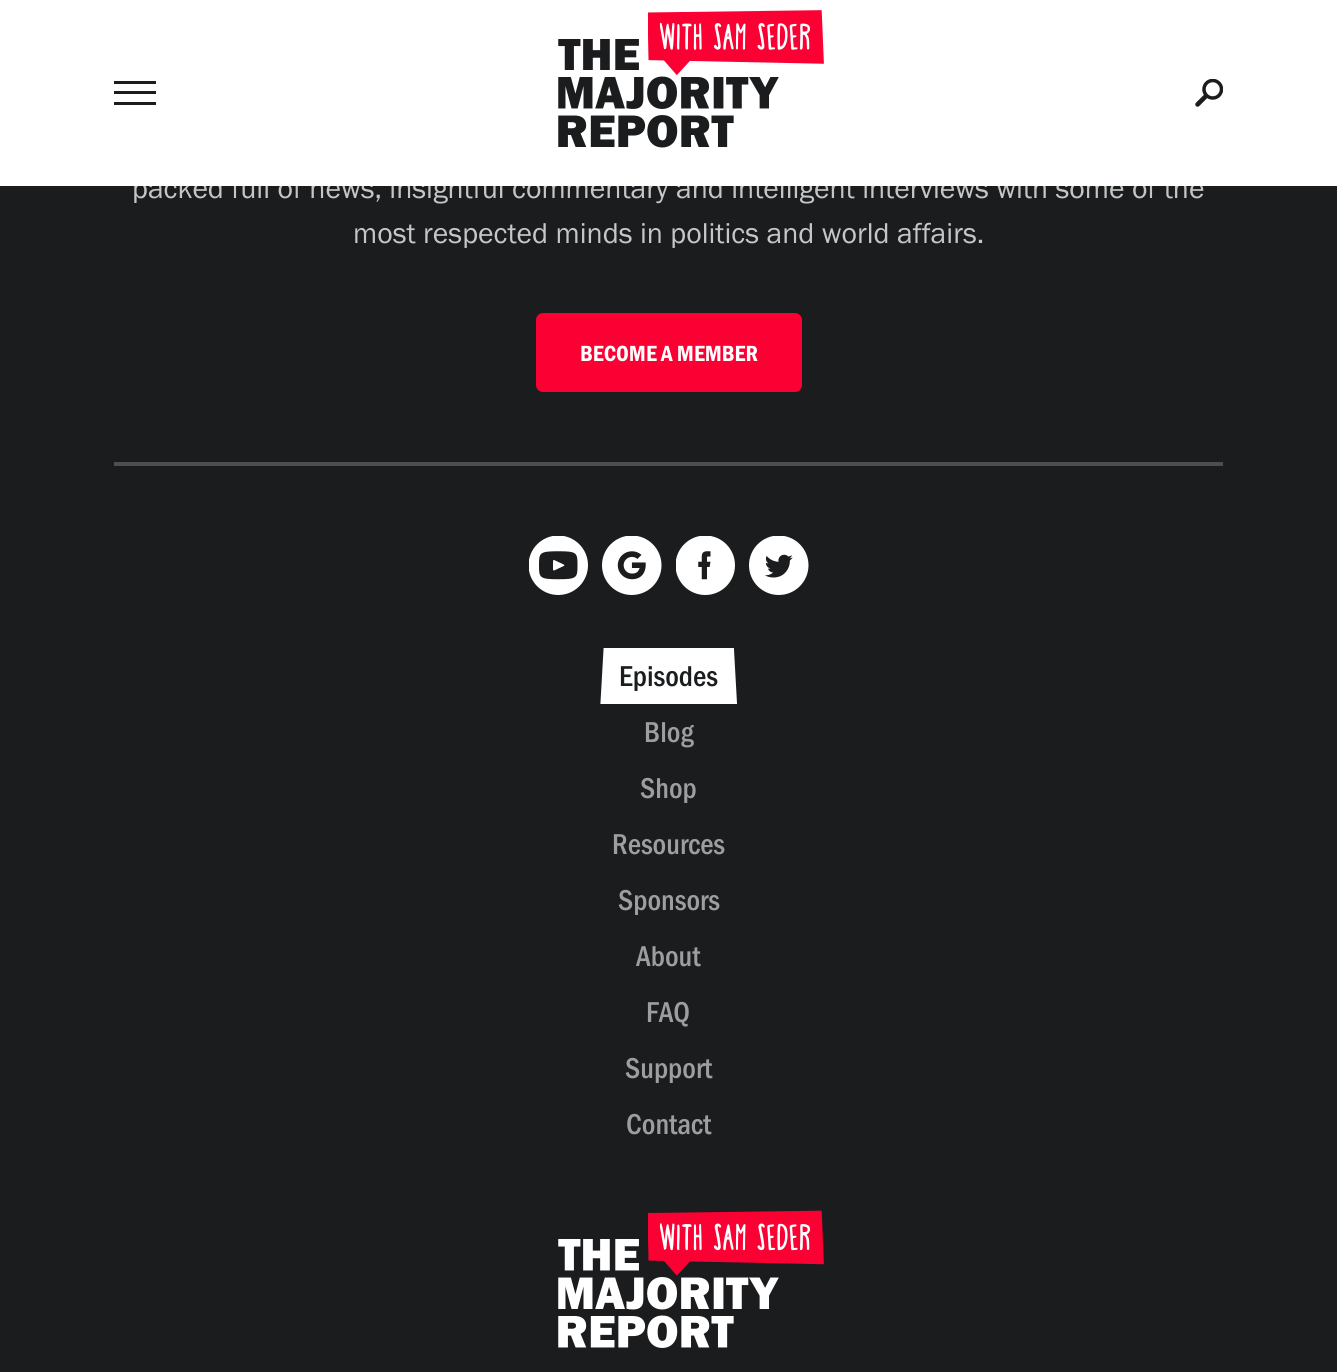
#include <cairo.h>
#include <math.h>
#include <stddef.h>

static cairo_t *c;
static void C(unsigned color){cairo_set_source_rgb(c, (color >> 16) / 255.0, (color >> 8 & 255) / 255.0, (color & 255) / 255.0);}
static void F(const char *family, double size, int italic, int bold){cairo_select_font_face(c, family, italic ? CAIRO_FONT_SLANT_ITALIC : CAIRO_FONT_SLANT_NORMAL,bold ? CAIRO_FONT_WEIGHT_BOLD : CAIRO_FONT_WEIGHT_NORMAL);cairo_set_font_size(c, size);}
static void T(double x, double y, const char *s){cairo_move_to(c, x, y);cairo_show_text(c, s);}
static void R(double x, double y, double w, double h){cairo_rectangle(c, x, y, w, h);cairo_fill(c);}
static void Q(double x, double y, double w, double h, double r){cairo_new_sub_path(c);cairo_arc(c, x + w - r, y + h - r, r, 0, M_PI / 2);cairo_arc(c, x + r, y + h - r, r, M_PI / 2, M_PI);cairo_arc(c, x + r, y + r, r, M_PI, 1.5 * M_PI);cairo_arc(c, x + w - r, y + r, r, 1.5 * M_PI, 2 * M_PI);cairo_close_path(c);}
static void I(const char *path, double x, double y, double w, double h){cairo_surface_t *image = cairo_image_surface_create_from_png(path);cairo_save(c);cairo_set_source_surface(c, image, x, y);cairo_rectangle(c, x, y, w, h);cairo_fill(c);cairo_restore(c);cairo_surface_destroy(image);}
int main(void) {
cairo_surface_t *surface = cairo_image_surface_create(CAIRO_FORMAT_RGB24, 1337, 1372);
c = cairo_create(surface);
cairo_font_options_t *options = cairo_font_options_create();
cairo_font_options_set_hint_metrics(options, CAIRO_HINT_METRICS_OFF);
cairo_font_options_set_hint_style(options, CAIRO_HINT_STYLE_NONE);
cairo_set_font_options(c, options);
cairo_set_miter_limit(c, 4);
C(0x1a1c1e);
cairo_paint(c);
cairo_set_source_rgba(c,0.102,0.11,0.118,0.05);
R(134,186,1070,3);
F("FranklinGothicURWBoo",29.75,0,0);
C(0xc4c6c8);
T(132,198,"packed full of news, insightful commentary and intelligent interviews with some of the");
C(0xffffff);
R(0,0,1337,186);
cairo_save(c);
cairo_rectangle(c,114,81,42,24);
cairo_clip(c);
C(0x1a1c1e);
cairo_set_fill_rule(c,CAIRO_FILL_RULE_EVEN_ODD);
cairo_new_path(c);
cairo_move_to(c,114,102);
cairo_line_to(c,156,102);
cairo_line_to(c,156,105);
cairo_line_to(c,114,105);
cairo_close_path(c);
cairo_move_to(c,114,91);
cairo_line_to(c,156,91);
cairo_line_to(c,156,94);
cairo_line_to(c,114,94);
cairo_close_path(c);
cairo_move_to(c,114,80);
cairo_line_to(c,156,80);
cairo_line_to(c,156,84);
cairo_line_to(c,114,84);
cairo_close_path(c);
cairo_fill(c);
cairo_restore(c);
I("2.png",558,39,221,109);
I("1.png",648,10,176,65);
I("3.png",1195,79,28,28);
C(0x4c4e50);
R(114,462,1109,4);
C(0xc4c6c8);
T(353,243,"most respected minds in politics and world affairs.");
C(0xfa0033);
Q(536,313,266,79,7);
cairo_fill(c);
F("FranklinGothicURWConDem",22.75,0,0);
C(0xffffff);
T(580,361,"BECOME A MEMBER");
I("4.png",529,536,59,59);
I("5.png",602,536,60,59);
I("6.png",676,536,59,59);
I("7.png",749,536,60,59);
cairo_save(c);
cairo_rectangle(c,599,648,140,56);
cairo_clip(c);
cairo_set_fill_rule(c,CAIRO_FILL_RULE_EVEN_ODD);
cairo_new_path(c);
cairo_move_to(c,598,746);
cairo_line_to(c,606,606);
cairo_line_to(c,732,614);
cairo_line_to(c,739,739);
cairo_close_path(c);
cairo_fill(c);
cairo_restore(c);
F("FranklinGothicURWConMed",29.75,0,0);
C(0x1a1c1e);
T(619,686,"Episodes");
C(0x9c9ea0);
T(644,742,"Blog");
T(640,798,"Shop");
T(612,854,"Resources");
T(618,910,"Sponsors");
T(636,966,"About");
T(646,1022,"FAQ");
T(625,1078,"Support");
T(626,1134,"Contact");
I("9.png",558,1239,221,109);
I("8.png",648,1210,176,66);
cairo_surface_write_to_png(surface, "o.png");
cairo_font_options_destroy(options);
cairo_destroy(c);
cairo_surface_destroy(surface);
return 0;
}
